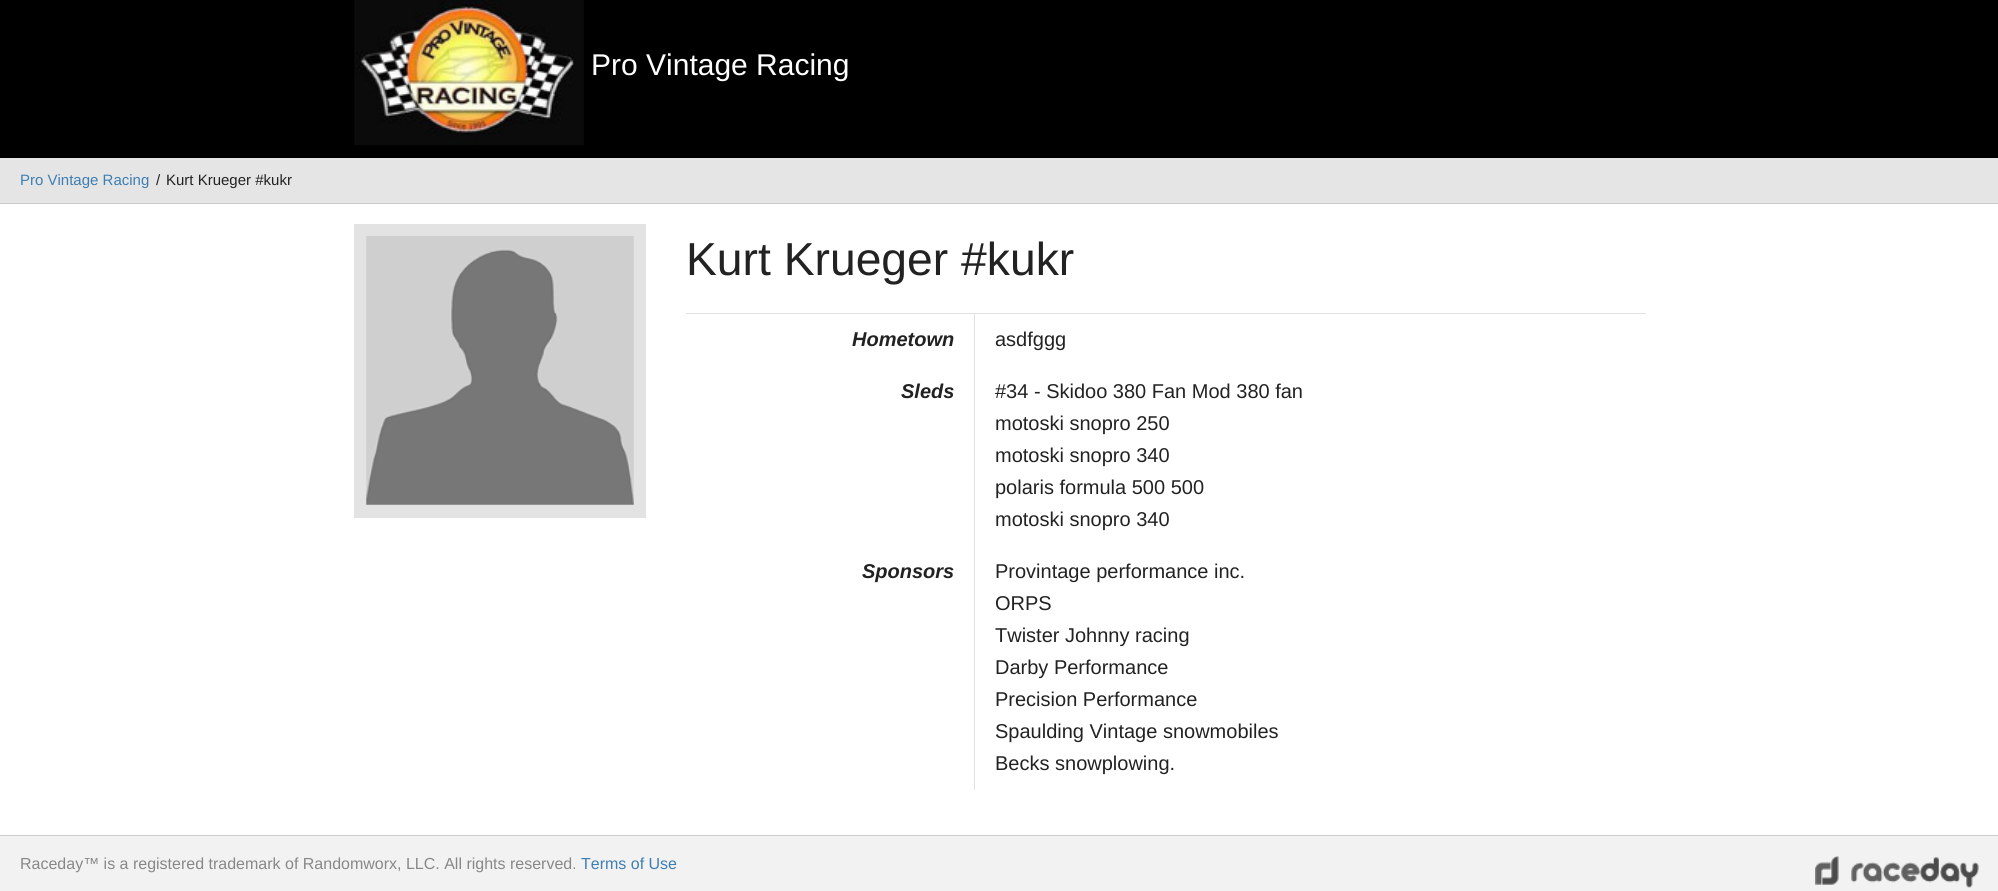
#include <cairo.h>
#include <math.h>
#include <stddef.h>

static cairo_t *c;
static void C(unsigned color){cairo_set_source_rgb(c, (color >> 16) / 255.0, (color >> 8 & 255) / 255.0, (color & 255) / 255.0);}
static void F(const char *family, double size, int italic, int bold){cairo_select_font_face(c, family, italic ? CAIRO_FONT_SLANT_ITALIC : CAIRO_FONT_SLANT_NORMAL,bold ? CAIRO_FONT_WEIGHT_BOLD : CAIRO_FONT_WEIGHT_NORMAL);cairo_set_font_size(c, size);}
static void T(double x, double y, const char *s){cairo_move_to(c, x, y);cairo_show_text(c, s);}
static void R(double x, double y, double w, double h){cairo_rectangle(c, x, y, w, h);cairo_fill(c);}
static void I(const char *path, double x, double y, double w, double h){cairo_surface_t *image = cairo_image_surface_create_from_png(path);cairo_save(c);cairo_set_source_surface(c, image, x, y);cairo_rectangle(c, x, y, w, h);cairo_fill(c);cairo_restore(c);cairo_surface_destroy(image);}
int main(void) {
cairo_surface_t *surface = cairo_image_surface_create(CAIRO_FORMAT_RGB24, 1998, 891);
c = cairo_create(surface);
cairo_font_options_t *options = cairo_font_options_create();
cairo_font_options_set_hint_metrics(options, CAIRO_HINT_METRICS_OFF);
cairo_font_options_set_hint_style(options, CAIRO_HINT_STYLE_NONE);
cairo_set_font_options(c, options);
cairo_set_miter_limit(c, 4);
C(0xffffff);
cairo_paint(c);
C(0x000000);
R(0,0,1998,158);
I("1.png",354,0,230,145);
F("Liberation Sans",30,0,0);
C(0xffffff);
T(591,75,"Pro Vintage Racing");
C(0xe5e5e5);
R(0,158,1998,45);
C(0xcccccc);
R(0,203,1998,1);
F("Liberation Sans",15,0,0);
C(0x3d7eb3);
T(20,185,"Pro Vintage Racing");
C(0x222222);
T(156,185,"/");
T(166,185,"Kurt Krueger #kukr");
C(0xe3e3e3);
R(354,224,292,294);
I("2.png",366,236,268,269);
F("Liberation Sans",46.25,0,0);
C(0x222222);
T(686,275,"Kurt Krueger #kukr");
C(0xe3e3e3);
R(686,313,960,1);
F("Liberation Sans",20,1,1);
C(0x222222);
T(852,346,"Hometown");
C(0xe3e3e3);
R(974,314,1,476);
F("Liberation Sans",20,0,0);
C(0x222222);
T(995,346,"asdfggg");
F("Liberation Sans",20,1,1);
T(901,398,"Sleds");
F("Liberation Sans",20,0,0);
T(995,398,"#34 - Skidoo 380 Fan Mod 380 fan");
T(995,430,"motoski snopro 250");
T(995,462,"motoski snopro 340");
T(995,494,"polaris formula 500 500");
T(995,526,"motoski snopro 340");
F("Liberation Sans",20,1,1);
T(862,578,"Sponsors");
F("Liberation Sans",20,0,0);
T(995,578,"Provintage performance inc.");
T(995,610,"ORPS");
T(995,642,"Twister Johnny racing");
T(995,674,"Darby Performance");
T(995,706,"Precision Performance");
T(995,738,"Spaulding Vintage snowmobiles");
T(995,770,"Becks snowplowing.");
C(0xcccccc);
R(0,835,1998,1);
C(0xf2f2f2);
R(0,836,1998,55);
F("Liberation Sans",16,0,0);
C(0x888888);
T(20,869,"Raceday™ is a registered trademark of Randomworx, LLC. All rights reserved.");
C(0x3d7eb3);
T(581,869,"Terms of Use");
I("3.png",1815,856,164,32);
cairo_surface_write_to_png(surface, "o.png");
cairo_font_options_destroy(options);
cairo_destroy(c);
cairo_surface_destroy(surface);
return 0;
}
